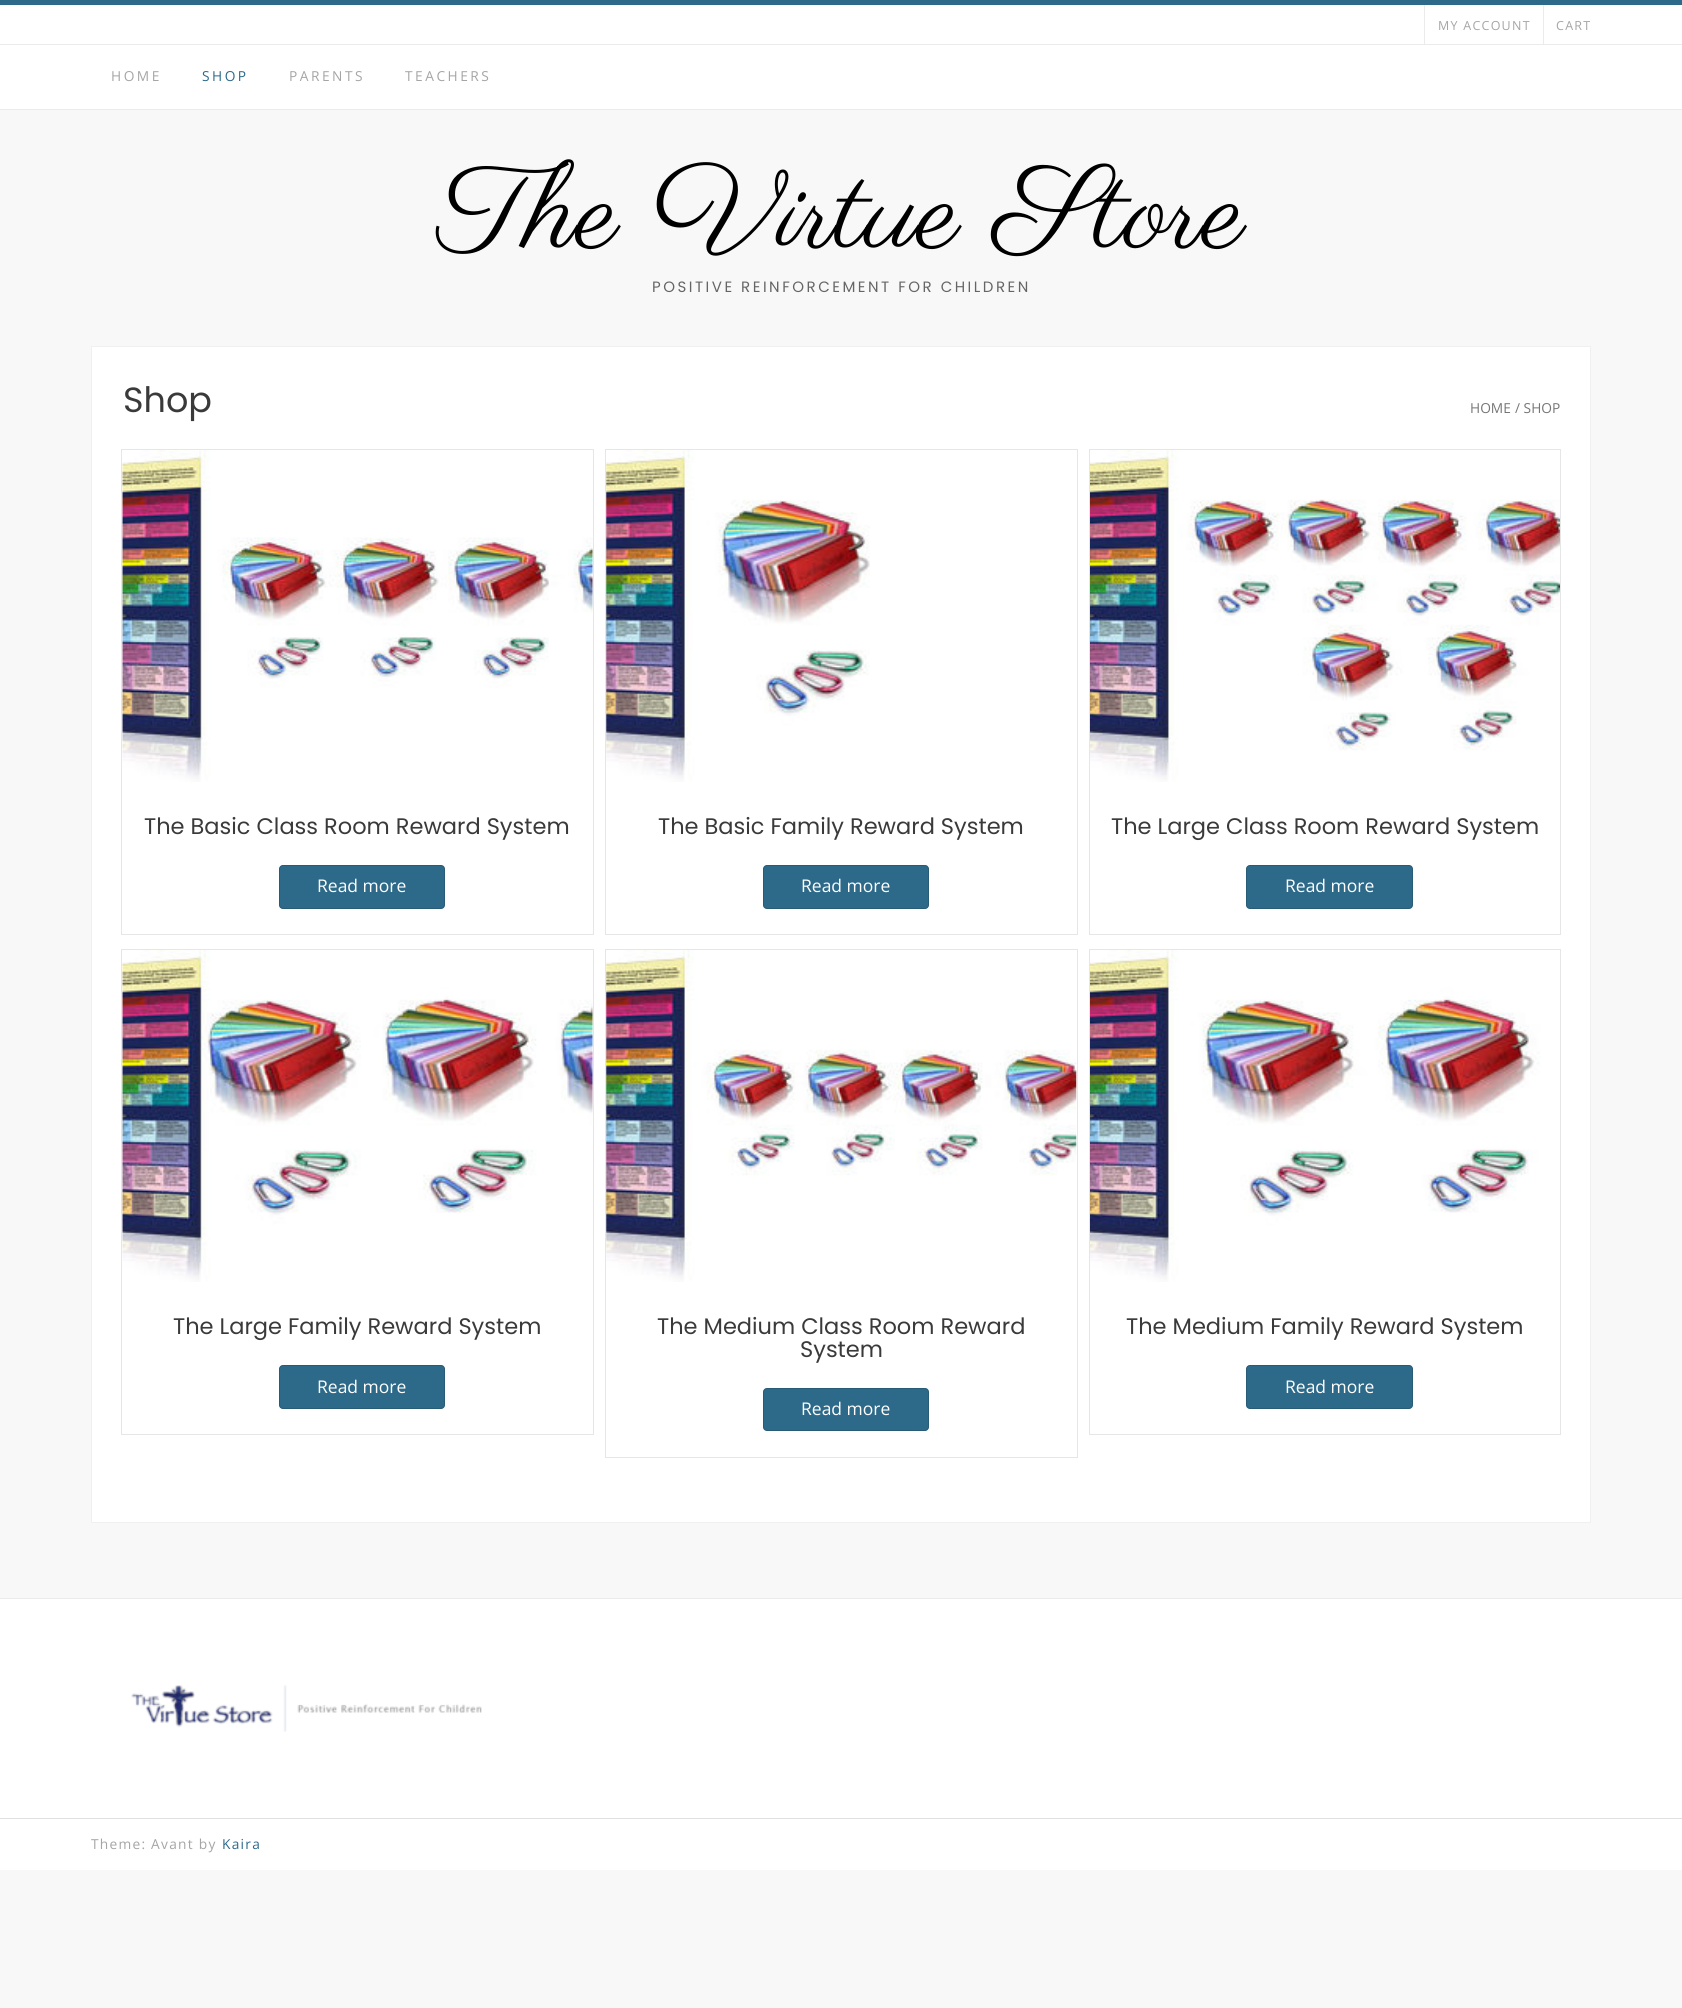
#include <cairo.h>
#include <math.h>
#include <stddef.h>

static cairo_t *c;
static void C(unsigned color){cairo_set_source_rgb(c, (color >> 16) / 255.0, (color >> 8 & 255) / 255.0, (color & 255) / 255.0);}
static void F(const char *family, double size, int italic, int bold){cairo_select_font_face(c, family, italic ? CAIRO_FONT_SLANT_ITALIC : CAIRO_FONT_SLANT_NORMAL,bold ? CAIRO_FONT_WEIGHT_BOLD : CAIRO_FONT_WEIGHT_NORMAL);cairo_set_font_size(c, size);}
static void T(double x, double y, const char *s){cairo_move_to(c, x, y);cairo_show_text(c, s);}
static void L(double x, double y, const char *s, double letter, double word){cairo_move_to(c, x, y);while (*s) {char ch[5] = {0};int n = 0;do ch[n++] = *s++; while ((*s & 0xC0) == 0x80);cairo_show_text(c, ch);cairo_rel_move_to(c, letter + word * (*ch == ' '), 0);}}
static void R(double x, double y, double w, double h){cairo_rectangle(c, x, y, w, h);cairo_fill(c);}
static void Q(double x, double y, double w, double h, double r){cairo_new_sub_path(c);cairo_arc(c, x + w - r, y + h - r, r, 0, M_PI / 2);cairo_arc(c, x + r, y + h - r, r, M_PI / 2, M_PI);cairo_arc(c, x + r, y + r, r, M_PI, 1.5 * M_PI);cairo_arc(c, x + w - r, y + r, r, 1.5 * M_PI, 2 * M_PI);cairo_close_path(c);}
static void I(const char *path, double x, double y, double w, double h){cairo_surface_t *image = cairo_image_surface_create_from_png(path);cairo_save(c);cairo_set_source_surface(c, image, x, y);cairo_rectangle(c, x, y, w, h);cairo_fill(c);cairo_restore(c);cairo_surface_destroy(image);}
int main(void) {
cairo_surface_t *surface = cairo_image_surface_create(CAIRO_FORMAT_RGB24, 1682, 2008);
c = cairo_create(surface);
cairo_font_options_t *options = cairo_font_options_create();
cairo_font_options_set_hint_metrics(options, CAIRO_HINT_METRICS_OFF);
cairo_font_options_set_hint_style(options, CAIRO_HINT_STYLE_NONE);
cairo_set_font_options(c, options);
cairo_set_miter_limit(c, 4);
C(0xf8f8f8);
cairo_paint(c);
C(0x2d6989);
R(0,0,1682,5);
C(0xffffff);
R(0,5,1682,39);
C(0xebebeb);
R(0,44,1682,1);
cairo_new_path(c);
cairo_move_to(c,1424,5);
cairo_line_to(c,1424,44);
cairo_line_to(c,1543,44);
cairo_line_to(c,1425,44);
cairo_line_to(c,1425,5);
cairo_close_path(c);
cairo_fill(c);
F("Open Sans",12.5,0,0);
C(0xa5a5a5);
L(1438,30,"MY ACCOUNT",1.25,0);
C(0xebebeb);
cairo_new_path(c);
cairo_move_to(c,1543,5);
cairo_line_to(c,1543,44);
cairo_line_to(c,1590,44);
cairo_line_to(c,1544,44);
cairo_line_to(c,1544,5);
cairo_close_path(c);
cairo_fill(c);
C(0xa5a5a5);
L(1556,30,"CART",1.25,0);
C(0xffffff);
R(0,45,1682,64);
C(0xebebeb);
R(0,109,1682,1);
F("Open Sans",13.75,0,0);
C(0xa5a5a5);
L(111,81,"HOME",2.5,0);
C(0x2d6989);
L(202,81,"SHOP",2.5,0);
C(0xa5a5a5);
L(289,81,"PARENTS",2.5,0);
L(405,81,"TEACHERS",2.5,0);
F("Parisienne",117.5,0,0);
C(0x000000);
T(438,246,"The Virtue Store");
F("Poppins",15,0,0);
C(0x656565);
L(652,292,"POSITIVE REINFORCEMENT FOR CHILDREN",2.5,0);
C(0xffffff);
cairo_rectangle(c,91.5,346.5,1499,1176);
cairo_fill_preserve(c);
C(0xf0f0f0);
cairo_set_line_width(c,1);
cairo_stroke(c);
F("Poppins",35,0,0);
C(0x3a3a3a);
T(123,412,"Shop");
F("Open Sans",13.75,0,0);
C(0x767676);
T(1470,413,"HOME");
T(1515,413,"/ SHOP");
cairo_rectangle(c,121.5,449.5,472,485);
C(0xe6e6e6);
cairo_stroke(c);
I("1.png",122,450,471,332);
F("Poppins",22.5,0,0);
C(0x3a3a3a);
T(144,834,"The Basic Class Room Reward System");
C(0x2d6989);
Q(279,865,166,44,4);
cairo_fill(c);
Q(279.5,865.5,165,43,3.5);
cairo_set_source_rgba(c,0,0,0,0.14);
cairo_stroke(c);
F("Open Sans",17.5,0,0);
C(0xffffff);
T(317,892,"Read more");
cairo_rectangle(c,605.5,449.5,472,485);
C(0xe6e6e6);
cairo_stroke(c);
I("2.png",606,450,264,332);
F("Poppins",22.5,0,0);
C(0x3a3a3a);
T(658,834,"The Basic Family Reward System");
C(0x2d6989);
Q(763,865,166,44,4);
cairo_fill(c);
Q(763.5,865.5,165,43,3.5);
cairo_set_source_rgba(c,0,0,0,0.14);
cairo_stroke(c);
F("Open Sans",17.5,0,0);
C(0xffffff);
T(801,892,"Read more");
cairo_rectangle(c,1089.5,449.5,471,485);
C(0xe6e6e6);
cairo_stroke(c);
I("3.png",1090,450,470,332);
F("Poppins",22.5,0,0);
C(0x3a3a3a);
T(1111,834,"The Large Class Room Reward System");
C(0x2d6989);
Q(1246,865,167,44,4);
cairo_fill(c);
Q(1246.5,865.5,166,43,3.5);
cairo_set_source_rgba(c,0,0,0,0.14);
cairo_stroke(c);
F("Open Sans",17.5,0,0);
C(0xffffff);
T(1285,892,"Read more");
cairo_rectangle(c,121.5,949.5,472,485);
C(0xe6e6e6);
cairo_stroke(c);
I("4.png",122,950,471,332);
F("Poppins",22.5,0,0);
C(0x3a3a3a);
T(173,1334,"The Large Family Reward System");
C(0x2d6989);
Q(279,1365,166,44,4);
cairo_fill(c);
Q(279.5,1365.5,165,43,3.5);
cairo_set_source_rgba(c,0,0,0,0.14);
cairo_stroke(c);
F("Open Sans",17.5,0,0);
C(0xffffff);
T(317,1393,"Read more");
cairo_rectangle(c,605.5,949.5,472,508);
C(0xe6e6e6);
cairo_stroke(c);
I("5.png",606,950,471,332);
F("Poppins",22.5,0,0);
C(0x3a3a3a);
T(657,1334,"The Medium Class Room Reward");
T(800,1357,"System");
C(0x2d6989);
Q(763,1388,166,43,4);
cairo_fill(c);
Q(763.5,1388.5,165,42,3.5);
cairo_set_source_rgba(c,0,0,0,0.14);
cairo_stroke(c);
F("Open Sans",17.5,0,0);
C(0xffffff);
T(801,1415,"Read more");
cairo_rectangle(c,1089.5,949.5,471,485);
C(0xe6e6e6);
cairo_stroke(c);
I("6.png",1090,950,451,332);
F("Poppins",22.5,0,0);
C(0x3a3a3a);
T(1126,1334,"The Medium Family Reward System");
C(0x2d6989);
Q(1246,1365,167,44,4);
cairo_fill(c);
Q(1246.5,1365.5,166,43,3.5);
cairo_set_source_rgba(c,0,0,0,0.14);
cairo_stroke(c);
F("Open Sans",17.5,0,0);
C(0xffffff);
T(1285,1393,"Read more");
R(0,1599,1682,219);
C(0xebebeb);
R(0,1598,1682,1);
I("7.png",131,1685,351,47);
C(0xffffff);
R(0,1819,1682,51);
C(0xe0e0e0);
R(0,1818,1682,1);
F("Open Sans",13.75,0,0);
C(0xa5a5a5);
L(91,1849,"Theme: Avant by",1.25,0);
C(0x2d6989);
L(222,1849,"Kaira",1.25,0);
cairo_surface_write_to_png(surface, "o.png");
cairo_font_options_destroy(options);
cairo_destroy(c);
cairo_surface_destroy(surface);
return 0;
}
